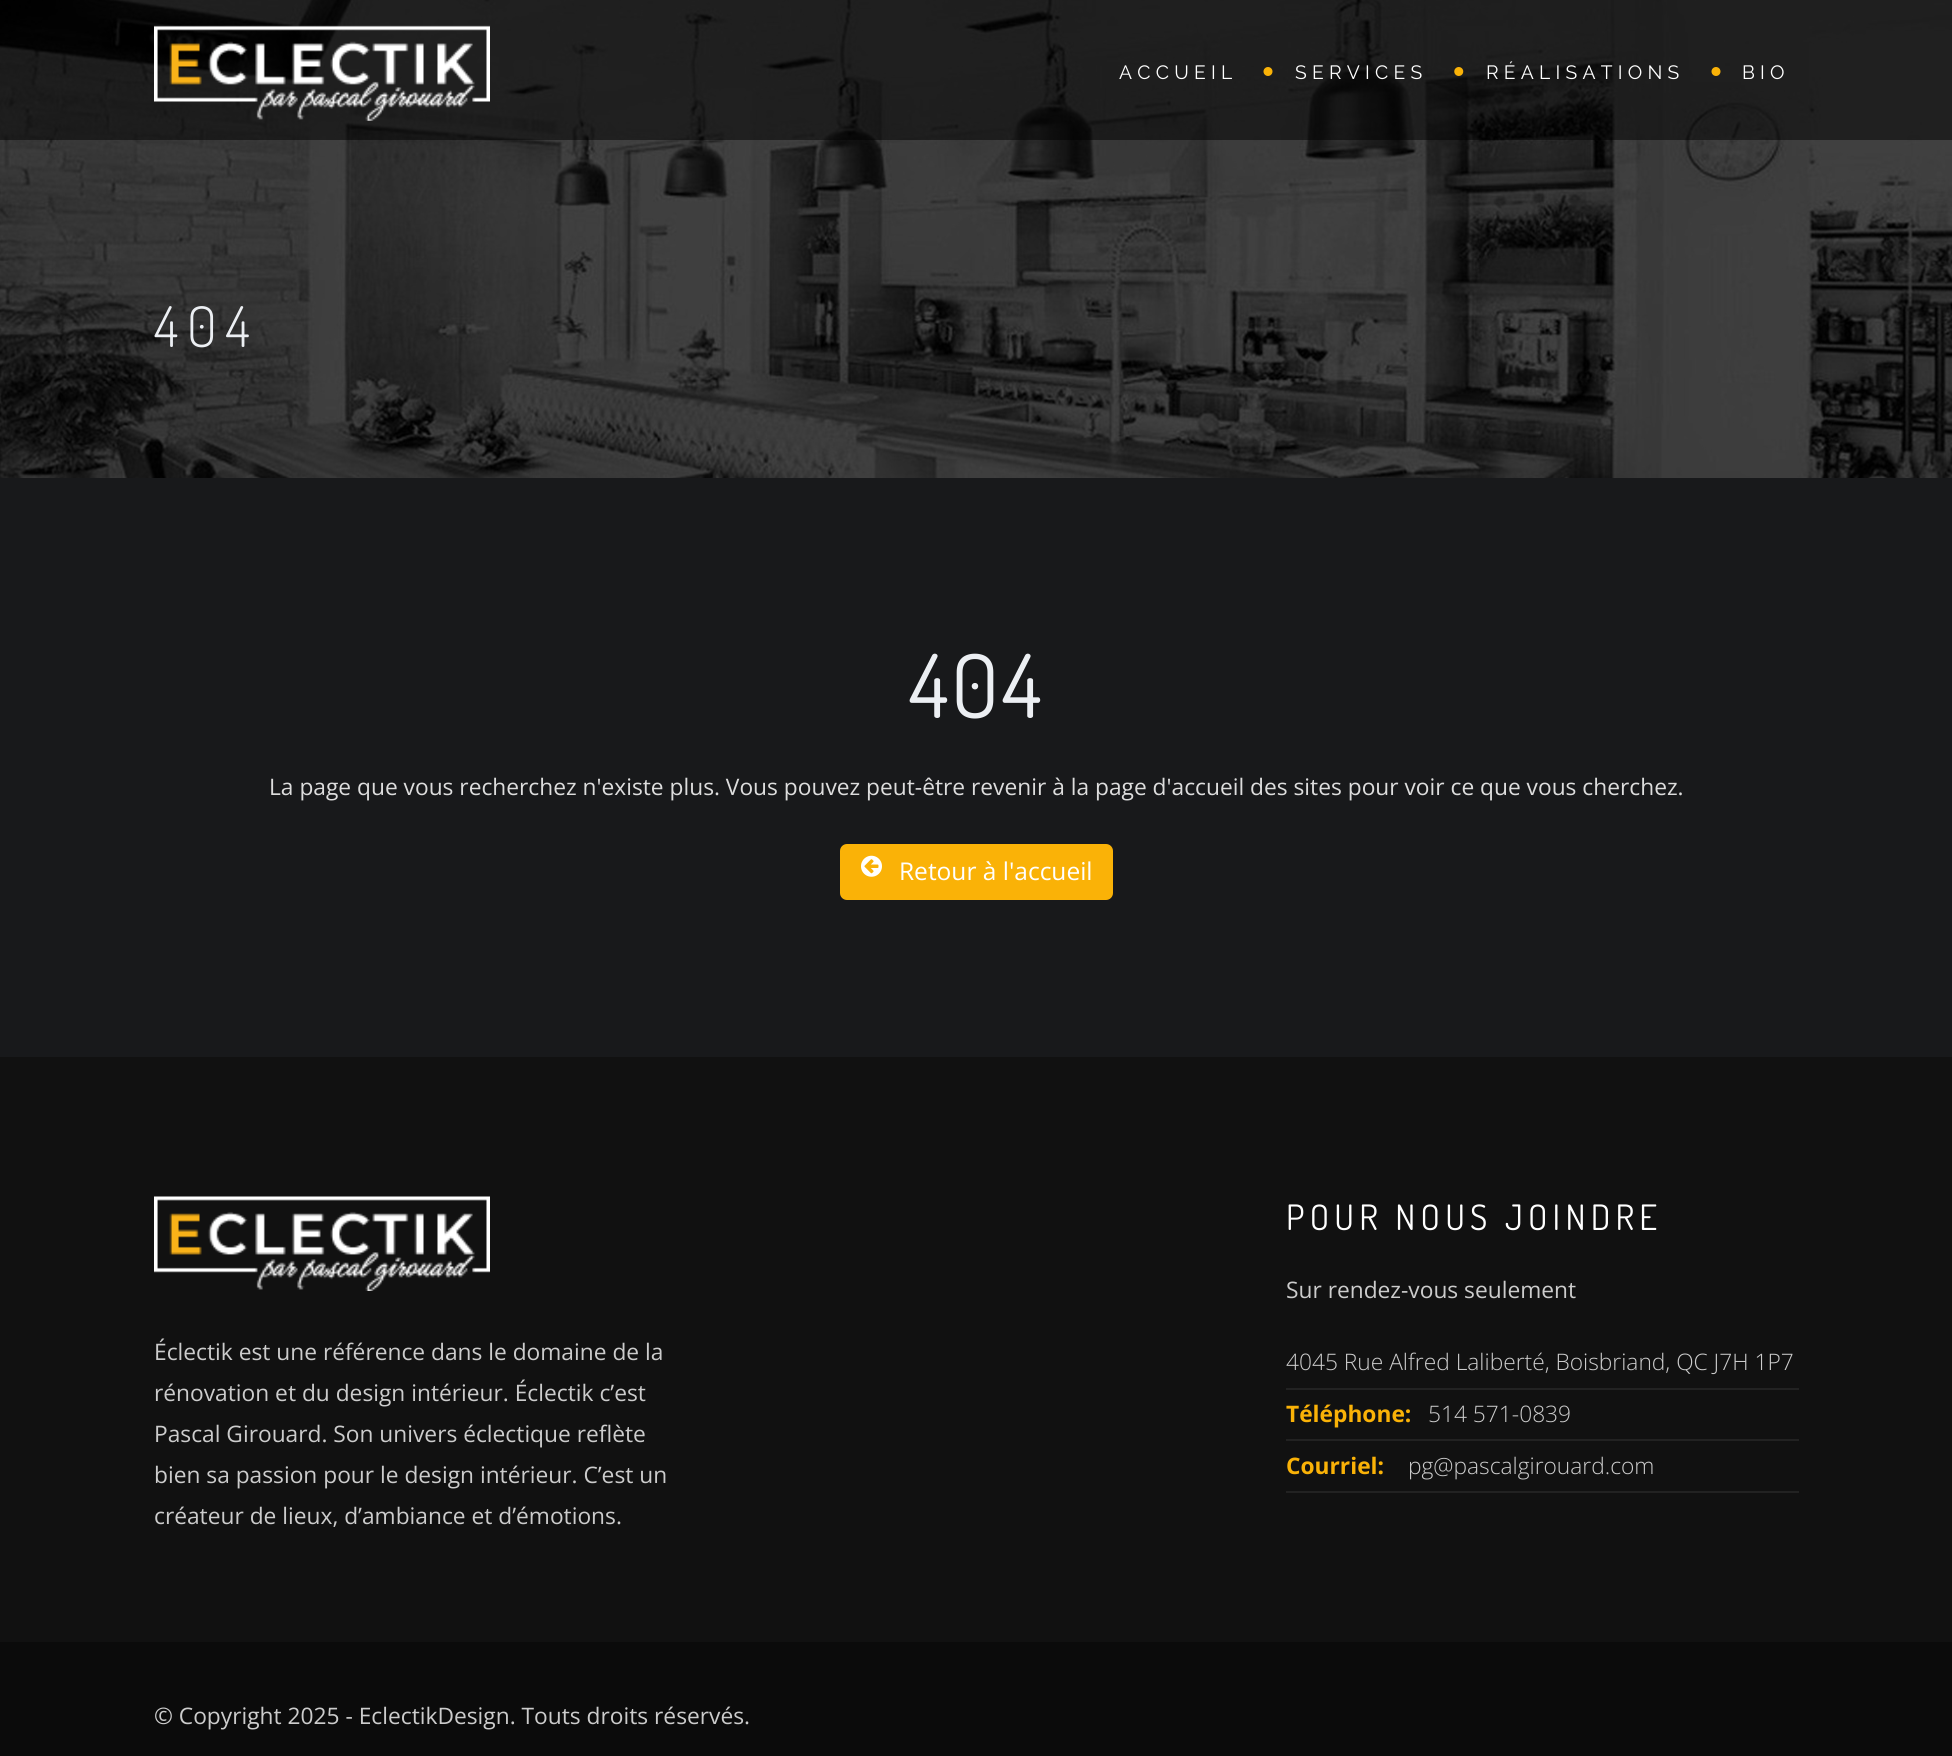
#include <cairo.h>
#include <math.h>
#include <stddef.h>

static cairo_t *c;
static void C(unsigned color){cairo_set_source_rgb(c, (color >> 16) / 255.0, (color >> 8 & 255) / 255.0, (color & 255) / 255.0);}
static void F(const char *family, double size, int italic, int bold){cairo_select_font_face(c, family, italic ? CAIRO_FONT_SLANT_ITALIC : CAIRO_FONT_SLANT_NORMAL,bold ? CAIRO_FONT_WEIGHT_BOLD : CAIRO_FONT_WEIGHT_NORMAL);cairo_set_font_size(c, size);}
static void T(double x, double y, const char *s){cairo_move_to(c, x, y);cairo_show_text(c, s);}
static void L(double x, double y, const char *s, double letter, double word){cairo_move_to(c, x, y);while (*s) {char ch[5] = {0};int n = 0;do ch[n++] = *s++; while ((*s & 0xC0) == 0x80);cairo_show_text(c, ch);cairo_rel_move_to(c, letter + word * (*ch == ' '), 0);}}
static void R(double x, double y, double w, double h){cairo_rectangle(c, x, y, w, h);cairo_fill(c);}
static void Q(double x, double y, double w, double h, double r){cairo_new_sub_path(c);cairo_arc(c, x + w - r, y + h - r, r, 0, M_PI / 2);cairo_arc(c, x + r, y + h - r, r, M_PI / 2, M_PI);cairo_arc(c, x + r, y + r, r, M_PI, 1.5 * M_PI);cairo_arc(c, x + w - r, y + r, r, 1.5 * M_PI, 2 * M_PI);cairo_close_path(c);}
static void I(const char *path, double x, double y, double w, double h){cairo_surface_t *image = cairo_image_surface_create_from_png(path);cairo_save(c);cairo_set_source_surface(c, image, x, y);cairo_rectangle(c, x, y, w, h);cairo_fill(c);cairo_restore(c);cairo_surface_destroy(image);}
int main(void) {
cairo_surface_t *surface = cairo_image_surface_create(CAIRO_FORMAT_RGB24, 1952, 1756);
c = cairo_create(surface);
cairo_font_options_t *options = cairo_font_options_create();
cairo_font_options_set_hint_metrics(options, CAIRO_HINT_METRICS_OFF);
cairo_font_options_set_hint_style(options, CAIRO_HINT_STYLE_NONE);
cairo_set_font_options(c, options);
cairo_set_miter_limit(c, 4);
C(0xffffff);
cairo_paint(c);
I("5.png",0,0,1952,478);
cairo_set_source_rgba(c,0,0,0,0.5);
R(0,0,1952,140);
I("1.png",154,25,336,96);
F("Raleway",19.25,0,0);
C(0xffffff);
L(1119,79,"ACCUEIL",5.25,0);
I("2.png",1263,67,10,9);
L(1295,79,"SERVICES",5.25,0);
I("3.png",1454,67,10,9);
L(1486,79,"RÉALISATIONS",5.25,0);
I("4.png",1711,67,10,9);
L(1742,79,"BIO",5.25,0);
F("Dosis Light",56,0,0);
C(0xeceff3);
L(154,347,"404",9,0);
C(0x18191b);
R(0,478,1952,579);
F("Dosis",88,0,0);
C(0xeceff3);
L(909,718,"404",3.5,0);
F("Open Sans",22.75,0,0);
C(0xdddddd);
T(269,795,"La page que vous recherchez n'existe plus. Vous pouvez peut-être revenir à la page d'accueil des sites pour voir ce que vous cherchez.");
C(0xfab207);
Q(840,844,273,56,7);
cairo_fill(c);
I("6.png",861,855,21,22);
F("Open Sans",24.5,0,0);
C(0xffffff);
T(899,880,"Retour à l'accueil");
C(0x111111);
R(0,1057,1952,585);
I("7.png",154,1196,336,95);
F("Open Sans",22.75,0,0);
C(0xcccccc);
T(154,1360,"Éclectik est une référence dans le domaine de la");
T(154,1401,"rénovation et du design intérieur. Éclectik c’est");
T(154,1442,"Pascal Girouard. Son univers éclectique reflète");
T(154,1483,"bien sa passion pour le design intérieur. C’est un");
T(154,1524,"créateur de lieux, d’ambiance et d’émotions.");
F("Dosis",35,0,0);
C(0xffffff);
L(1286,1230,"POUR NOUS JOINDRE",5.25,0);
F("Open Sans",22.75,0,0);
C(0xcccccc);
T(1286,1298,"Sur rendez-vous seulement");
C(0x222222);
R(1286,1388,513,2);
F("Open Sans Light",22.75,0,0);
C(0xcccccc);
T(1286,1370,"4045 Rue Alfred Laliberté, Boisbriand, QC J7H 1P7");
C(0x222222);
R(1286,1439,513,2);
F("Open Sans",22.75,0,1);
C(0xfab207);
T(1286,1422,"Téléphone:");
F("Open Sans Light",22.75,0,0);
C(0xcccccc);
T(1428,1422,"514 571-0839");
C(0x222222);
R(1286,1491,513,2);
F("Open Sans",22.75,0,1);
C(0xfab207);
T(1286,1474,"Courriel:");
F("Open Sans Light",22.75,0,0);
C(0xcccccc);
T(1408,1474,"pg@pascalgirouard.com");
C(0x0b0b0b);
R(0,1642,1952,114);
F("Open Sans",22.75,0,0);
C(0xcccccc);
T(154,1724,"© Copyright 2025 - EclectikDesign. Touts droits réservés.");
cairo_surface_write_to_png(surface, "o.png");
cairo_font_options_destroy(options);
cairo_destroy(c);
cairo_surface_destroy(surface);
return 0;
}
